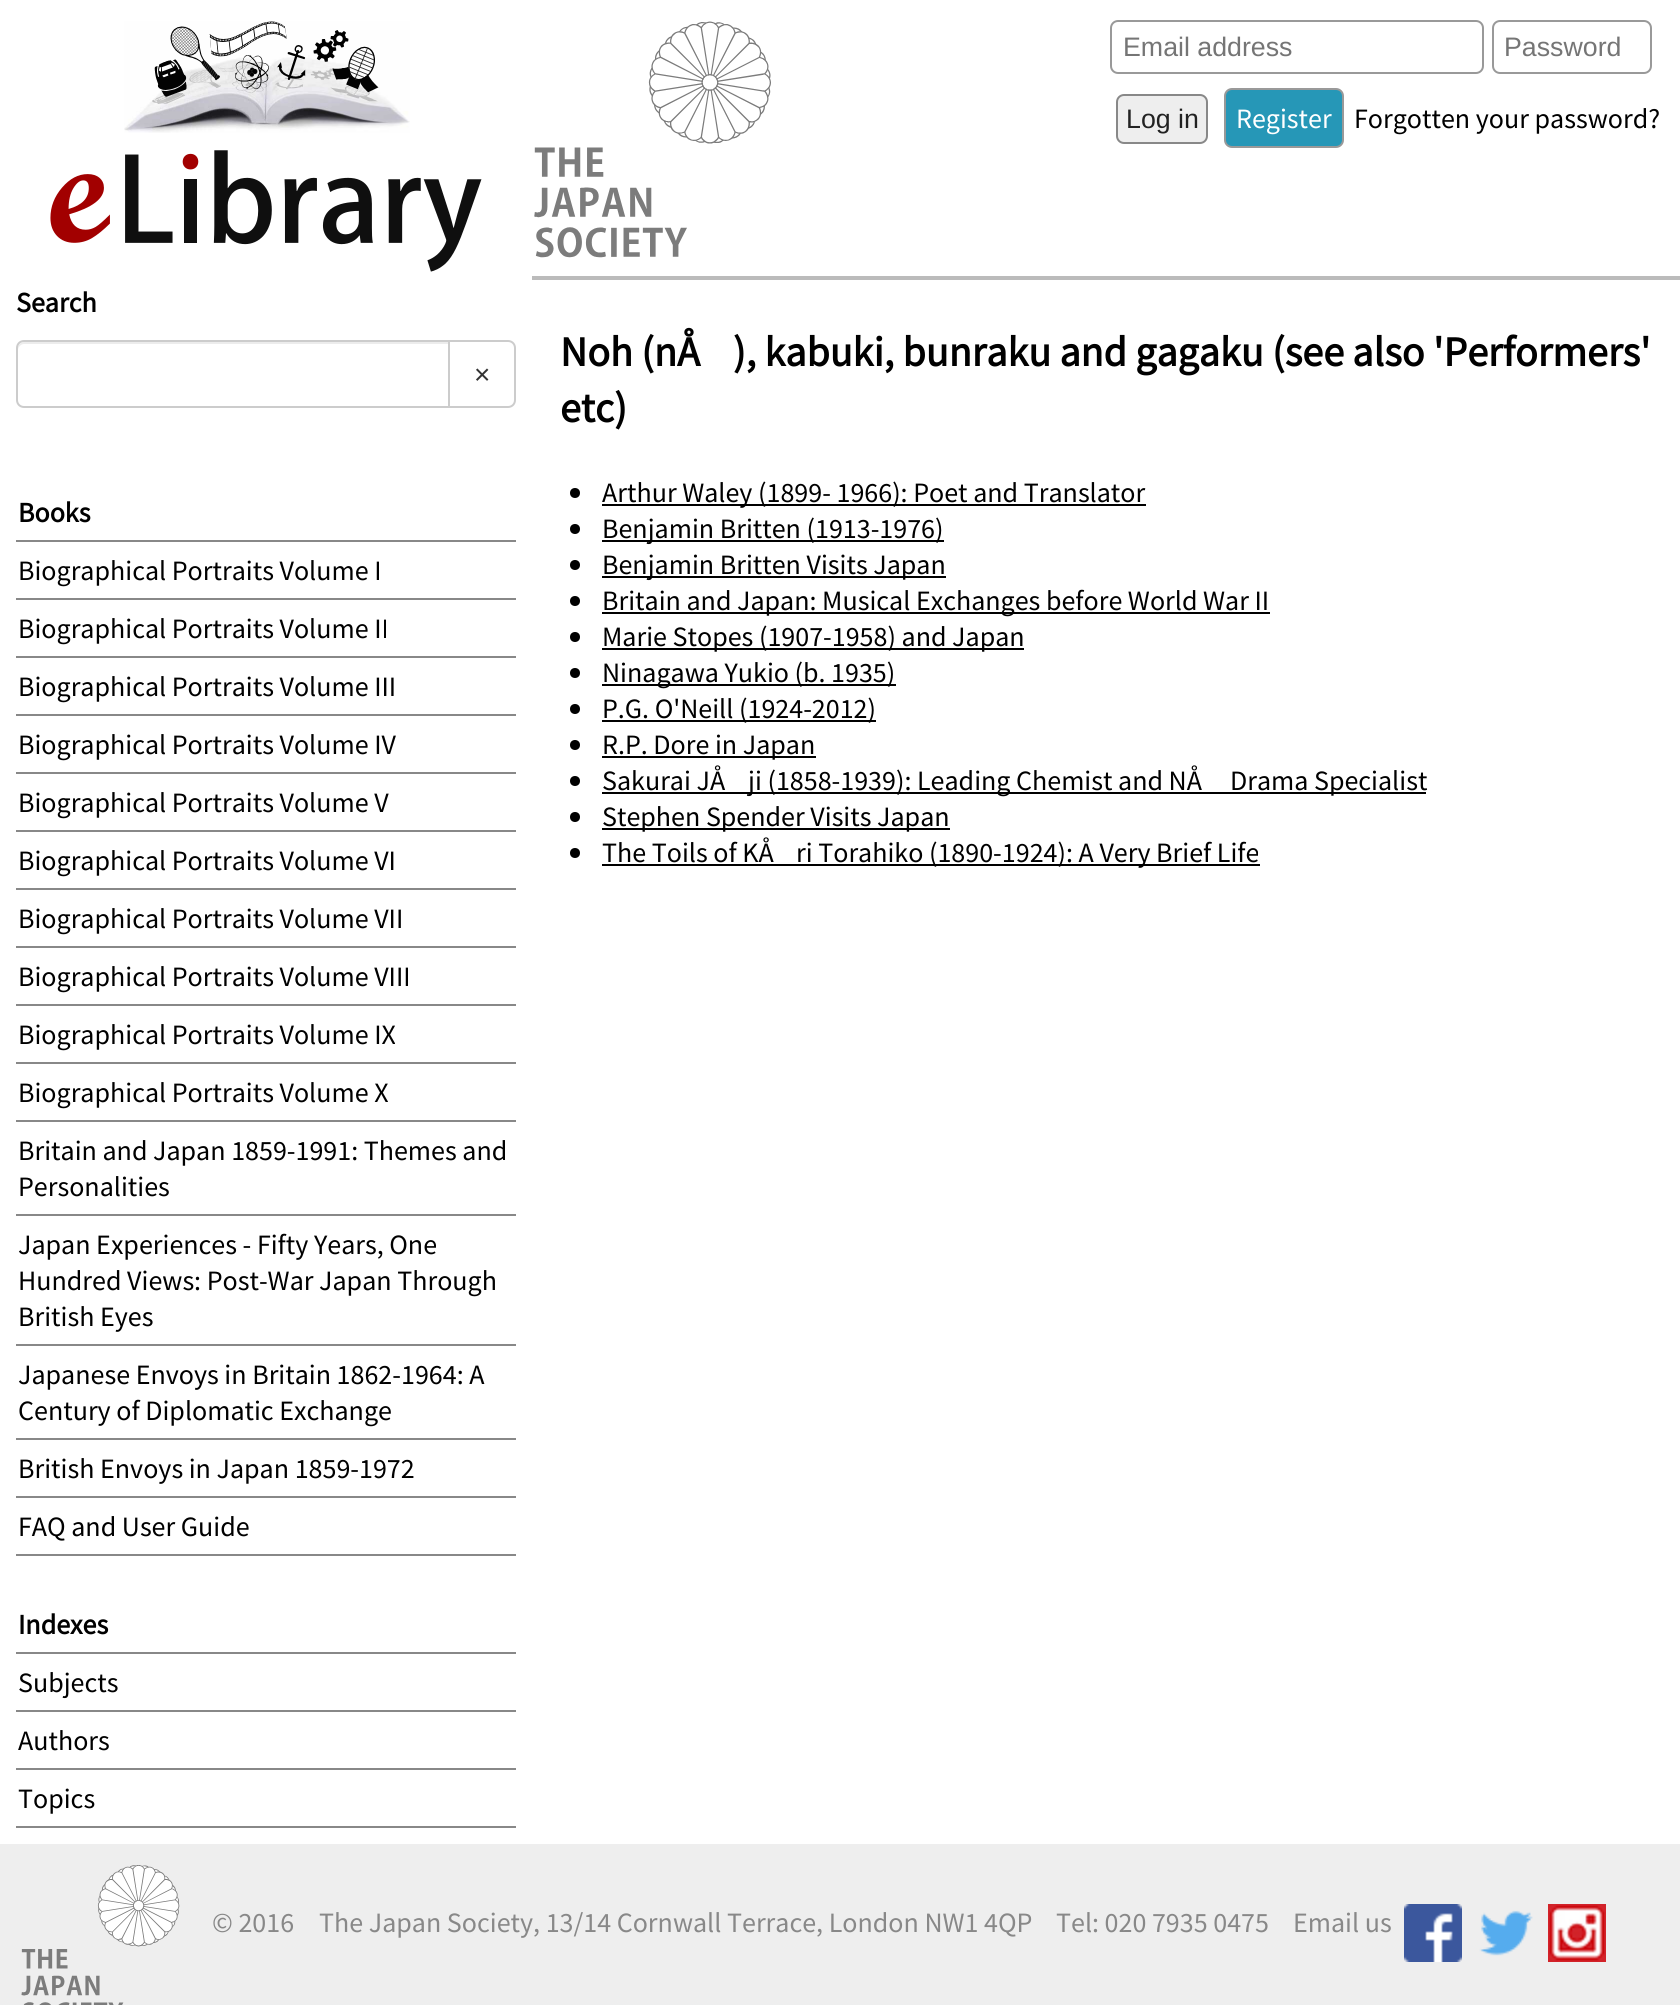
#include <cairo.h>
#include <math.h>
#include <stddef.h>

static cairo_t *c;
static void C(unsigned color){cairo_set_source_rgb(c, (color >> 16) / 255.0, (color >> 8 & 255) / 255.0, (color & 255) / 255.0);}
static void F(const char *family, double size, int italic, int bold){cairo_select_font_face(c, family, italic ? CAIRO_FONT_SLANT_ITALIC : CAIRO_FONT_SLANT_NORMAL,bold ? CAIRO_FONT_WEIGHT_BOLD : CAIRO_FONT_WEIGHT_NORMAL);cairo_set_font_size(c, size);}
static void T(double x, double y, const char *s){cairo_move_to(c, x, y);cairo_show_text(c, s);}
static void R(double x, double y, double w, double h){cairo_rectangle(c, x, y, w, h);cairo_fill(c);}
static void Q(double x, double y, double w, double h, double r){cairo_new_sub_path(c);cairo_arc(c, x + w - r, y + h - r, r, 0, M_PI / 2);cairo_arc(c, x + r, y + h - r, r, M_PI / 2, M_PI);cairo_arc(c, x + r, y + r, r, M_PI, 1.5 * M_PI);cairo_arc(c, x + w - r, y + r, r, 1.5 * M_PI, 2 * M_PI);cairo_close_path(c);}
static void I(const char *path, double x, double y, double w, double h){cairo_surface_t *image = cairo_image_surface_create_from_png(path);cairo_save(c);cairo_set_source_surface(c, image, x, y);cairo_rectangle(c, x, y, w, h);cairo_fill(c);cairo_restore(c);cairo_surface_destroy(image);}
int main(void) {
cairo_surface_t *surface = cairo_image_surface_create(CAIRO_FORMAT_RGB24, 1680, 2005);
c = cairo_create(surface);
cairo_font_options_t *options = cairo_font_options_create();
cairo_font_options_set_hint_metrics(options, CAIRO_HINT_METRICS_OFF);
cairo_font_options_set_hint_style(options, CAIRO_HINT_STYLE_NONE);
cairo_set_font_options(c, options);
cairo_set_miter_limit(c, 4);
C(0xffffff);
cairo_paint(c);
C(0xbbbbbb);
R(532,276,1148,4);
I("1.png",534,21,237,237);
Q(1111,21,372,52,7);
C(0x999999);
cairo_stroke(c);
F("Liberation Sans",26.75,0,0);
C(0x757575);
T(1123,56,"Email address");
Q(1493,21,158,52,7);
C(0x999999);
cairo_stroke(c);
C(0x757575);
T(1504,56,"Password");
C(0xeeeeee);
Q(1117,95,90,48,7);
cairo_fill_preserve(c);
C(0x888888);
cairo_stroke(c);
C(0x222222);
T(1126,128,"Log in");
C(0x2697b7);
Q(1225,89,118,58,7);
cairo_fill_preserve(c);
C(0x999999);
cairo_stroke(c);
F("Source Sans Pro",28,0,0);
C(0xffffff);
T(1236,128,"Register");
C(0x000000);
T(1354,128,"Forgotten your password?");
I("2.png",124,21,286,112);
I("3.png",50,150,432,122);
F("Source Sans Pro",28,0,1);
T(16,312,"Search");
C(0xececec);
cairo_new_path(c);
cairo_move_to(c,24,344);
cairo_line_to(c,448,344);
cairo_line_to(c,448,342);
cairo_line_to(c,24,342);
cairo_curve_to(c,21,342,18,345,18,348);
cairo_line_to(c,18,350);
cairo_curve_to(c,18,347,21,344,24,344);
cairo_close_path(c);
cairo_fill(c);
cairo_new_path(c);
cairo_move_to(c,24,341);
cairo_line_to(c,449,341);
cairo_line_to(c,449,407);
cairo_line_to(c,24,407);
cairo_curve_to(c,20,407,17,404,17,400);
cairo_line_to(c,17,348);
cairo_curve_to(c,17,344,20,341,24,341);
cairo_close_path(c);
C(0xcccccc);
cairo_stroke(c);
C(0xffffff);
cairo_new_path(c);
cairo_move_to(c,449,341);
cairo_line_to(c,508,341);
cairo_curve_to(c,512,341,515,344,515,348);
cairo_line_to(c,515,400);
cairo_curve_to(c,515,404,512,407,508,407);
cairo_line_to(c,449,407);
cairo_close_path(c);
cairo_fill_preserve(c);
C(0xcccccc);
cairo_stroke(c);
F("Liberation Sans",28,0,0);
C(0x333333);
T(474,384,"×");
C(0x888888);
R(16,540,500,2);
F("Source Sans Pro",28,0,1);
C(0x000000);
T(18,522,"Books");
C(0x888888);
R(16,598,500,2);
F("Source Sans Pro",28,0,0);
C(0x000000);
T(18,580,"Biographical Portraits Volume I");
C(0x888888);
R(16,656,500,2);
C(0x000000);
T(18,638,"Biographical Portraits Volume II");
C(0x888888);
R(16,714,500,2);
C(0x000000);
T(18,696,"Biographical Portraits Volume III");
C(0x888888);
R(16,772,500,2);
C(0x000000);
T(18,754,"Biographical Portraits Volume IV");
C(0x888888);
R(16,830,500,2);
C(0x000000);
T(18,812,"Biographical Portraits Volume V");
C(0x888888);
R(16,888,500,2);
C(0x000000);
T(18,870,"Biographical Portraits Volume VI");
C(0x888888);
R(16,946,500,2);
C(0x000000);
T(18,928,"Biographical Portraits Volume VII");
C(0x888888);
R(16,1004,500,2);
C(0x000000);
T(18,986,"Biographical Portraits Volume VIII");
C(0x888888);
R(16,1062,500,2);
C(0x000000);
T(18,1044,"Biographical Portraits Volume IX");
C(0x888888);
R(16,1120,500,2);
C(0x000000);
T(18,1102,"Biographical Portraits Volume X");
C(0x888888);
R(16,1214,500,2);
C(0x000000);
T(18,1160,"Britain and Japan 1859-1991: Themes and");
T(18,1196,"Personalities");
C(0x888888);
R(16,1344,500,2);
C(0x000000);
T(18,1254,"Japan Experiences - Fifty Years, One");
T(18,1290,"Hundred Views: Post-War Japan Through");
T(18,1326,"British Eyes");
C(0x888888);
R(16,1438,500,2);
C(0x000000);
T(18,1384,"Japanese Envoys in Britain 1862-1964: A");
T(18,1420,"Century of Diplomatic Exchange");
C(0x888888);
R(16,1496,500,2);
C(0x000000);
T(18,1478,"British Envoys in Japan 1859-1972");
C(0x888888);
R(16,1554,500,2);
C(0x000000);
T(18,1536,"FAQ and User Guide");
C(0x888888);
R(16,1652,500,2);
F("Source Sans Pro",28,0,1);
C(0x000000);
T(18,1634,"Indexes");
C(0x888888);
R(16,1710,500,2);
F("Source Sans Pro",28,0,0);
C(0x000000);
T(18,1692,"Subjects");
C(0x888888);
R(16,1768,500,2);
C(0x000000);
T(18,1750,"Authors");
C(0x888888);
R(16,1826,500,2);
C(0x000000);
T(18,1808,"Topics");
F("Source Sans Pro",42,0,1);
T(560,366,"Noh (nÅ");
T(733,366,"), kabuki, bunraku and gagaku (see also 'Performers'");
T(560,422,"etc)");
cairo_new_path(c);
cairo_arc(c,575,493,5,0,2 * M_PI);
cairo_fill(c);
R(602,504,544,2);
F("Source Sans Pro",28,0,0);
T(602,502,"Arthur Waley (1899- 1966): Poet and Translator");
cairo_new_path(c);
cairo_arc(c,575,529,5,0,2 * M_PI);
cairo_fill(c);
R(602,540,342,2);
T(602,538,"Benjamin Britten (1913-1976)");
cairo_new_path(c);
cairo_arc(c,575,565,5,0,2 * M_PI);
cairo_fill(c);
R(602,576,344,2);
T(602,574,"Benjamin Britten Visits Japan");
cairo_new_path(c);
cairo_arc(c,575,601,5,0,2 * M_PI);
cairo_fill(c);
R(602,612,668,2);
T(602,610,"Britain and Japan: Musical Exchanges before World War II");
cairo_new_path(c);
cairo_arc(c,575,637,5,0,2 * M_PI);
cairo_fill(c);
R(602,648,422,2);
T(602,646,"Marie Stopes (1907-1958) and Japan");
cairo_new_path(c);
cairo_arc(c,575,673,5,0,2 * M_PI);
cairo_fill(c);
R(602,684,294,2);
T(602,682,"Ninagawa Yukio (b. 1935)");
cairo_new_path(c);
cairo_arc(c,575,709,5,0,2 * M_PI);
cairo_fill(c);
R(602,720,274,2);
T(602,718,"P.G. O'Neill (1924-2012)");
cairo_new_path(c);
cairo_arc(c,575,745,5,0,2 * M_PI);
cairo_fill(c);
R(602,756,214,2);
T(602,754,"R.P. Dore in Japan");
cairo_new_path(c);
cairo_arc(c,575,781,5,0,2 * M_PI);
cairo_fill(c);
T(602,790,"Sakurai JÅ");
R(602,792,824,2);
T(748,790,"ji (1858-1939): Leading Chemist and NÅ");
T(1230,790,"Drama Specialist");
cairo_new_path(c);
cairo_arc(c,575,817,5,0,2 * M_PI);
cairo_fill(c);
R(602,828,348,2);
T(602,826,"Stephen Spender Visits Japan");
cairo_new_path(c);
cairo_arc(c,575,853,5,0,2 * M_PI);
cairo_fill(c);
T(602,862,"The Toils of KÅ");
R(602,864,658,2);
T(796,862,"ri Torahiko (1890-1924): A Very Brief Life");
C(0xeeeeee);
R(0,1844,1680,161);
I("4.png",21,1865,159,140);
C(0x888888);
T(212,1932,"© 2016");
T(319,1932,"The Japan Society, 13/14 Cornwall Terrace, London NW1 4QP");
T(1056,1932,"Tel: 020 7935 0475");
T(1293,1932,"Email us");
I("5.png",1404,1904,58,58);
I("6.png",1479,1910,54,46);
I("7.png",1548,1904,58,58);
cairo_surface_write_to_png(surface, "o.png");
cairo_font_options_destroy(options);
cairo_destroy(c);
cairo_surface_destroy(surface);
return 0;
}
